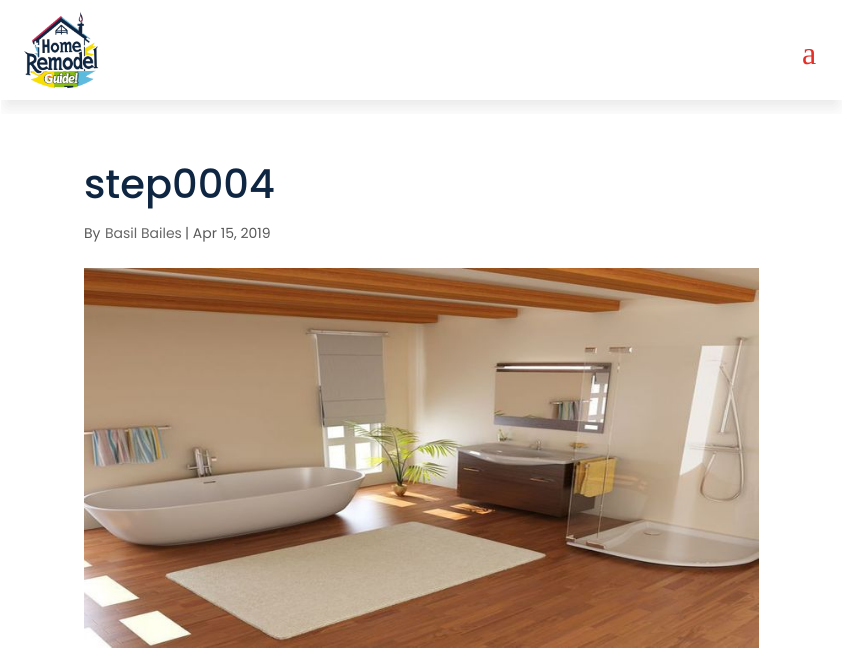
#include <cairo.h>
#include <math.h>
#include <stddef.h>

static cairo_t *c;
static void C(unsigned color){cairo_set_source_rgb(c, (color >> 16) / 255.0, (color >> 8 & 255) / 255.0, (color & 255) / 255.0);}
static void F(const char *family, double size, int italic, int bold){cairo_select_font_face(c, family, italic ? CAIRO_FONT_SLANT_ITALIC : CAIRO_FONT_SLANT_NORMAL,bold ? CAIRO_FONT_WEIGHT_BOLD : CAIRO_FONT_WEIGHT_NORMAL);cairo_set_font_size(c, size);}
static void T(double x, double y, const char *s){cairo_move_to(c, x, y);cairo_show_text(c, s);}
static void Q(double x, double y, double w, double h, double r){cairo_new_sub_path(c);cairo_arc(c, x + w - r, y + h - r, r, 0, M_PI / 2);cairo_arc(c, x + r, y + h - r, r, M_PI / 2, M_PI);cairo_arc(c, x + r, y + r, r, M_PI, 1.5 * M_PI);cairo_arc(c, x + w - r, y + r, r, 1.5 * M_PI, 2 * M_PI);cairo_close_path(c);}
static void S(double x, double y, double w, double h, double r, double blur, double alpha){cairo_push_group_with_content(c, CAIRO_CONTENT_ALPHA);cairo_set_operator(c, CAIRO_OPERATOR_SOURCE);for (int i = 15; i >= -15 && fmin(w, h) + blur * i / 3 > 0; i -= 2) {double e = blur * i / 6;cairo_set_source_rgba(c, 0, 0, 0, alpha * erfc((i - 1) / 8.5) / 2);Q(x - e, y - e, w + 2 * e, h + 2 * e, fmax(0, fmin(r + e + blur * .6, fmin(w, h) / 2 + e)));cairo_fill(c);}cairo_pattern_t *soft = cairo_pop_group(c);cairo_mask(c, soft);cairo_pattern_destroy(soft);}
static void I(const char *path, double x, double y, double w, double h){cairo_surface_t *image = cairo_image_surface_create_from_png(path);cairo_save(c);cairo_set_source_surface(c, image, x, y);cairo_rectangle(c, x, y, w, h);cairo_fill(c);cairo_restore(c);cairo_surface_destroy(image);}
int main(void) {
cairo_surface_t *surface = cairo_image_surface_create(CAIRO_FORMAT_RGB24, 843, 658);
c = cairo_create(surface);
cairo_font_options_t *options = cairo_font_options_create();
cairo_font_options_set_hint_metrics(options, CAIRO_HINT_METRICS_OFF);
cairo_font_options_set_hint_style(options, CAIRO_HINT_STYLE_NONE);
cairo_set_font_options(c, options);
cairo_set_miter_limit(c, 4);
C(0xffffff);
cairo_paint(c);
cairo_save(c);
cairo_rectangle(c,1,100,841,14);
cairo_clip(c);
C(0x000000);
S(6,18,831,88,0,9,.1);
cairo_restore(c);
I("1.png",24,11,75,78);
F("Liberation Serif",32,0,0);
C(0xe32f28);
T(802,64,"a");
F("Poppins Medium",40,0,0);
C(0x0e2642);
T(84,198,"step0004");
F("Poppins",14,0,0);
C(0x595959);
T(84,238,"By");
C(0x666666);
T(105,238,"Basil Bailes");
C(0x595959);
T(185,238,"| Apr 15, 2019");
I("2.png",84,268,675,380);
cairo_surface_write_to_png(surface, "o.png");
cairo_font_options_destroy(options);
cairo_destroy(c);
cairo_surface_destroy(surface);
return 0;
}
